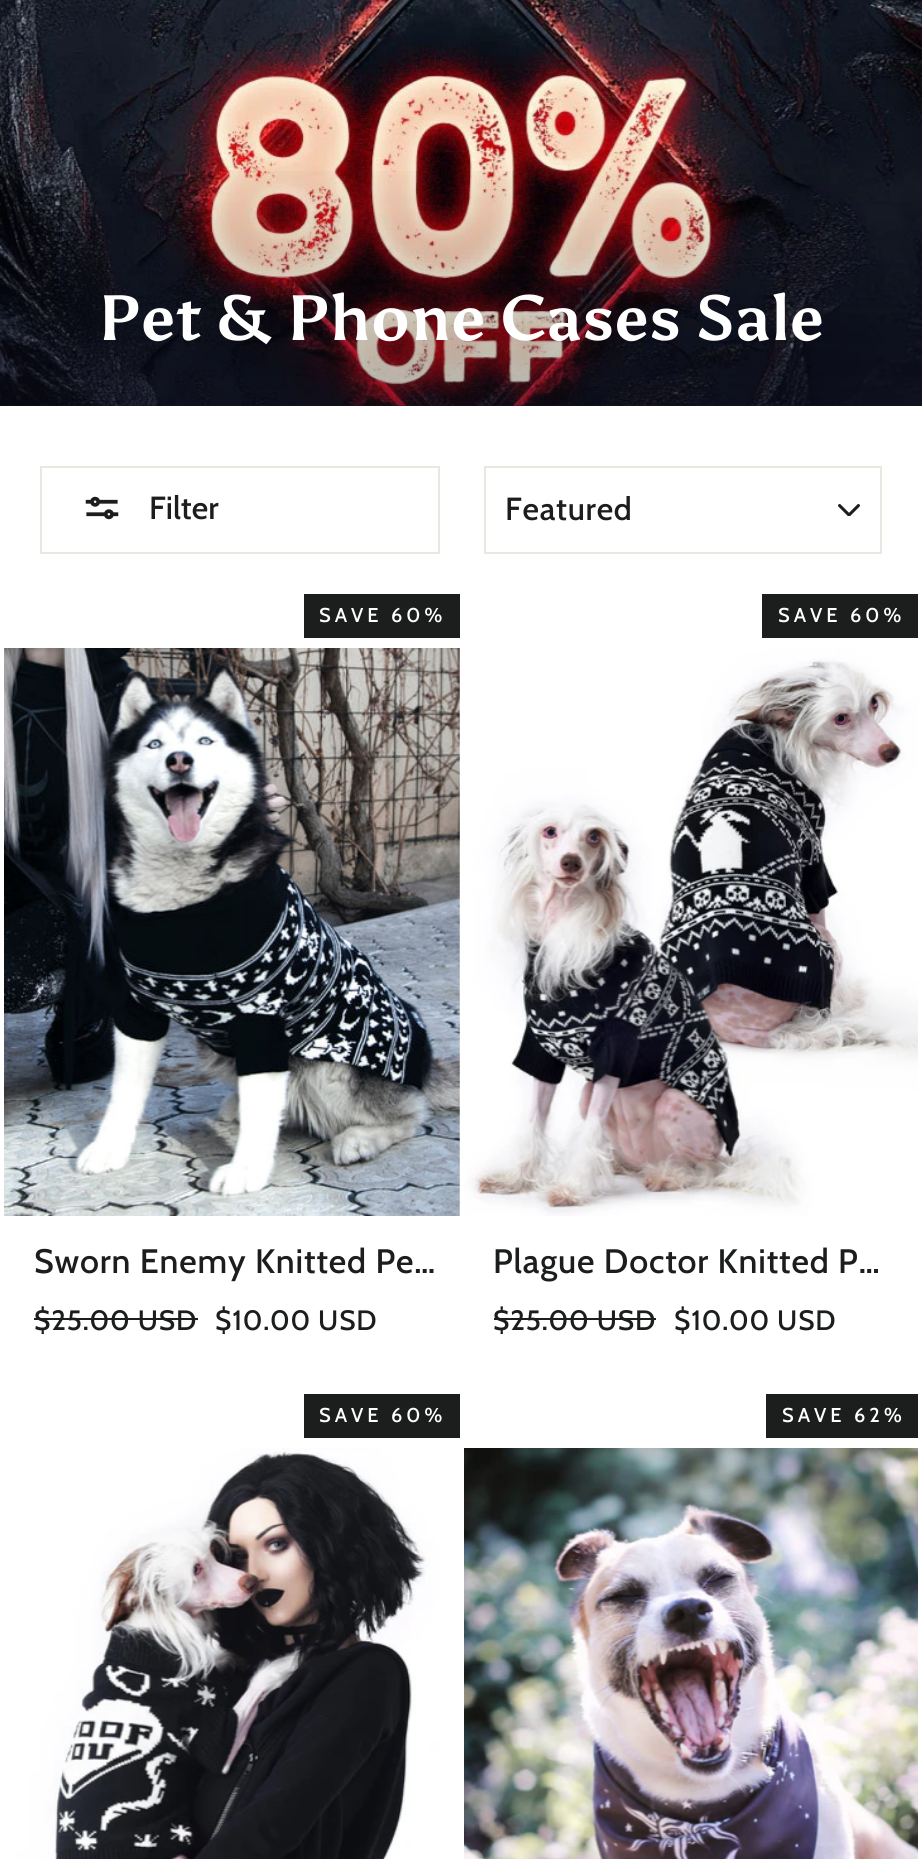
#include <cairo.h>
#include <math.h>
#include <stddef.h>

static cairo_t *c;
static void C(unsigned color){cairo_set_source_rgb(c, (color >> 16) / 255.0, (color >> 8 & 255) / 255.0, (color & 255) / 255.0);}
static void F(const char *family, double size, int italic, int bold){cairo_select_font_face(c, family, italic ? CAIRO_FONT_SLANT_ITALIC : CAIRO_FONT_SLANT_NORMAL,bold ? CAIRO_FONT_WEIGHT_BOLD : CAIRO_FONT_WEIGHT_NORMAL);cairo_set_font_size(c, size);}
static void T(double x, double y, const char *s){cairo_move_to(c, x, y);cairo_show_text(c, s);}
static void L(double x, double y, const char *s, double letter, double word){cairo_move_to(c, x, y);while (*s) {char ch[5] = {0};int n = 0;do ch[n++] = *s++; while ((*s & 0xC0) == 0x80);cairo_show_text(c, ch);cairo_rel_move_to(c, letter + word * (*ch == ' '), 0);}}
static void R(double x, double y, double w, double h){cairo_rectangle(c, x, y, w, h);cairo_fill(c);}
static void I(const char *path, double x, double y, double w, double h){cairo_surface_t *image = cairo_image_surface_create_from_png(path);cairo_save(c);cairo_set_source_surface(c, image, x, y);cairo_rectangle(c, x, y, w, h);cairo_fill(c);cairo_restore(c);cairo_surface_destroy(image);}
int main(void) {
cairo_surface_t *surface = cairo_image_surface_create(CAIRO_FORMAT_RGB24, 922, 1859);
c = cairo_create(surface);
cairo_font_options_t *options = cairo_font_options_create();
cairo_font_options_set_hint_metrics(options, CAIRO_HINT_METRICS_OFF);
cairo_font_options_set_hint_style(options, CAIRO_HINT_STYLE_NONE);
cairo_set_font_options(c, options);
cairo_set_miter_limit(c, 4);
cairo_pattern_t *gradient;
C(0xffffff);
cairo_paint(c);
C(0x17172c);
R(0,0,922,406);
I("1.png",0,0,922,406);
gradient = cairo_pattern_create_linear(461,-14,461,406);
cairo_pattern_add_color_stop_rgba(gradient,0,0.09,0.09,0.173,0);
cairo_pattern_add_color_stop_rgba(gradient,.4,0.09,0.09,0.173,0);
cairo_pattern_add_color_stop_rgba(gradient,1,0.09,0.09,0.173,.32);
cairo_set_source(c,gradient);
cairo_pattern_destroy(gradient);
R(0,171,922,235);
F("Asul",64,0,1);
C(0xffffff);
T(97,340,"Pet & Phone Cases Sale");
cairo_rectangle(c,41,467,398,86);
C(0xe8e8e1);
cairo_stroke(c);
I("2.png",85,496,34,24);
F("Cabin Medium",32,0,0);
C(0x1c1d1d);
T(149,519,"Filter");
I("3.png",838,504,22,12);
cairo_rectangle(c,485,467,396,86);
C(0xe8e8e1);
cairo_stroke(c);
C(0x1c1d1d);
L(505,520,"Featured",.75,0);
R(304,594,156,44);
F("Cabin Medium",20,0,0);
C(0xffffff);
L(319,622,"SAVE 60%",4,0);
I("4.png",4,648,456,568);
F("Cabin Medium",33.9,0,0);
C(0x1c1d1d);
L(34,1273,"Sworn Enemy Knitted Pe…",.85,0);
F("Cabin Medium",28,0,0);
L(34,1330,"$25.00 USD",.85,0);
R(34,1318,164,2);
L(215,1330,"$10.00 USD",.85,0);
R(762,594,156,44);
F("Cabin Medium",20,0,0);
C(0xffffff);
L(778,622,"SAVE 60%",4,0);
I("5.png",464,648,454,568);
F("Cabin Medium",33.9,0,0);
C(0x1c1d1d);
L(493,1273,"Plague Doctor Knitted P…",.85,0);
F("Cabin Medium",28,0,0);
L(493,1330,"$25.00 USD",.85,0);
R(494,1318,162,2);
L(674,1330,"$10.00 USD",.85,0);
R(304,1394,156,44);
F("Cabin Medium",20,0,0);
C(0xffffff);
L(319,1422,"SAVE 60%",4,0);
I("6.png",4,1448,456,411);
C(0x1c1d1d);
R(766,1394,152,44);
C(0xffffff);
L(782,1422,"SAVE 62%",4,0);
I("7.png",464,1448,454,411);
cairo_surface_write_to_png(surface, "o.png");
cairo_font_options_destroy(options);
cairo_destroy(c);
cairo_surface_destroy(surface);
return 0;
}
